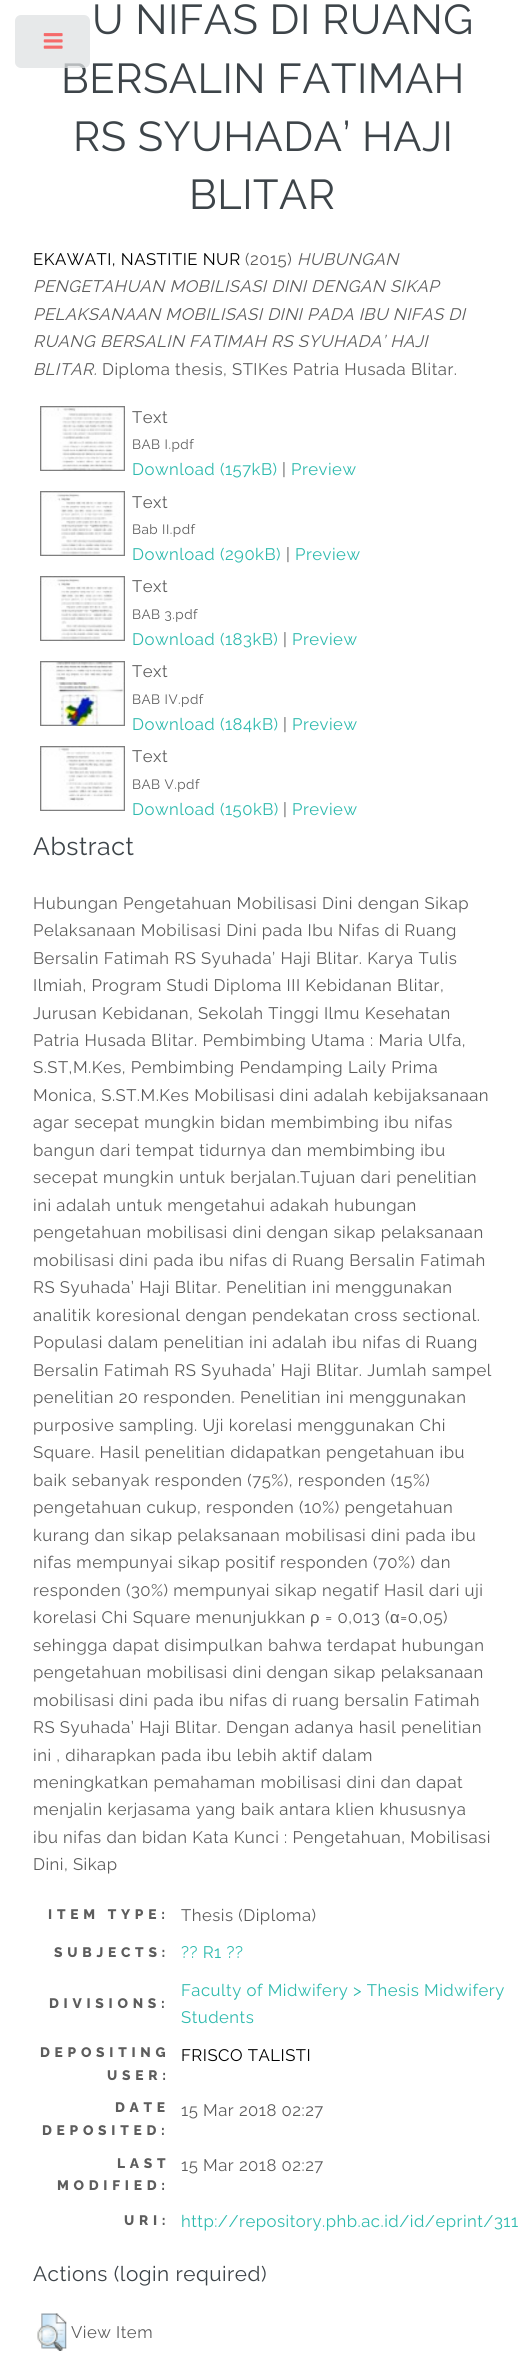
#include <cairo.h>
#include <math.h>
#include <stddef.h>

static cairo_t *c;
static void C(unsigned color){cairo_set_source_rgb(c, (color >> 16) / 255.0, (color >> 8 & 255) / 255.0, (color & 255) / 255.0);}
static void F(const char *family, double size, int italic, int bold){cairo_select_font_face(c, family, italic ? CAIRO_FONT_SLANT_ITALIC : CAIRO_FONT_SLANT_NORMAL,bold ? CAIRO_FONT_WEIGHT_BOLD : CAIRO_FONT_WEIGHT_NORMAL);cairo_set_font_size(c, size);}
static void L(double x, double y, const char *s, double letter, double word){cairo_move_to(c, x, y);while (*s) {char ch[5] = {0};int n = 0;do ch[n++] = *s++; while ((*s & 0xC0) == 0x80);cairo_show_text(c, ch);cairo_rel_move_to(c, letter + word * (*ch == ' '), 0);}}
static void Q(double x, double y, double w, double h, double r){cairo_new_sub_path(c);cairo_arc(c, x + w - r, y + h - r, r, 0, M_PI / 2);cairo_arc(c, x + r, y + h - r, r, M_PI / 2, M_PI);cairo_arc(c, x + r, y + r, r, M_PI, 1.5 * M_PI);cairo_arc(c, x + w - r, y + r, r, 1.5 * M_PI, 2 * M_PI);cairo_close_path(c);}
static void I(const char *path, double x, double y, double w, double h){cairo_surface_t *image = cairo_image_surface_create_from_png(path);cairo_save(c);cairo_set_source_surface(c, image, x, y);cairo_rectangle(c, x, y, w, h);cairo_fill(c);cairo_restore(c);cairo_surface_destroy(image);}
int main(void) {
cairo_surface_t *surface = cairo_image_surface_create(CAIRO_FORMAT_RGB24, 525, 2357);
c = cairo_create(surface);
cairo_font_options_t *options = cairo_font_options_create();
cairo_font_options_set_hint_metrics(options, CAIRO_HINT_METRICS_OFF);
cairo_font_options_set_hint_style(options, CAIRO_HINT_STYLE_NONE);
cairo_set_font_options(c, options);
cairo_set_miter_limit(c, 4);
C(0xffffff);
cairo_paint(c);
F("Raleway",41.75,0,0);
C(0x3d4449);
L(92,34,"U NIFAS DI RUANG",.5,0);
L(61,93,"BERSALIN FATIMAH",.5,0);
L(73,151,"RS SYUHADA’ HAJI",.5,0);
L(189,209,"BLITAR",.5,0);
F("Raleway",16.7,0,0);
C(0x000000);
L(33,265,"EKAWATI, NASTITIE NUR",.5,0);
C(0x5d5d5d);
L(245,265,"(2015)",.5,0);
F("Raleway",16.7,1,0);
L(297,265,"HUBUNGAN",.5,0);
L(33,292,"PENGETAHUAN MOBILISASI DINI DENGAN SIKAP",.5,0);
L(33,320,"PELAKSANAAN MOBILISASI DINI PADA IBU NIFAS DI",.5,0);
L(33,347,"RUANG BERSALIN FATIMAH RS SYUHADA’ HAJI",.5,0);
L(33,375,"BLITAR.",.5,0);
F("Raleway",16.7,0,0);
L(102,375,"Diploma thesis, STIKes Patria Husada Blitar.",.5,0);
I("1.png",40,406,85,65);
L(132,423,"Text",.5,0);
F("Raleway",13.5,0,0);
L(132,449,"BAB I.pdf",.5,0);
F("Raleway",16.7,0,0);
C(0x2ebaae);
L(132,475,"Download (157kB)",.5,0);
C(0x5d5d5d);
L(282,475,"|",.5,0);
C(0x2ebaae);
L(291,475,"Preview",.5,0);
I("2.png",40,491,85,65);
C(0x5d5d5d);
L(132,508,"Text",.5,0);
F("Raleway",13.5,0,0);
L(132,534,"Bab II.pdf",.5,0);
F("Raleway",16.7,0,0);
C(0x2ebaae);
L(132,560,"Download (290kB)",.5,0);
C(0x5d5d5d);
L(286,560,"|",.5,0);
C(0x2ebaae);
L(295,560,"Preview",.5,0);
I("3.png",40,576,85,65);
C(0x5d5d5d);
L(132,592,"Text",.5,0);
F("Raleway",13.5,0,0);
L(132,619,"BAB 3.pdf",.5,0);
F("Raleway",16.7,0,0);
C(0x2ebaae);
L(132,645,"Download (183kB)",.5,0);
C(0x5d5d5d);
L(283,645,"|",.5,0);
C(0x2ebaae);
L(292,645,"Preview",.5,0);
I("4.png",40,661,85,65);
C(0x5d5d5d);
L(132,677,"Text",.5,0);
F("Raleway",13.5,0,0);
L(132,704,"BAB IV.pdf",.5,0);
F("Raleway",16.7,0,0);
C(0x2ebaae);
L(132,730,"Download (184kB)",.5,0);
C(0x5d5d5d);
L(283,730,"|",.5,0);
C(0x2ebaae);
L(292,730,"Preview",.5,0);
I("5.png",40,746,85,65);
C(0x5d5d5d);
L(132,762,"Text",.5,0);
F("Raleway",13.5,0,0);
L(132,789,"BAB V.pdf",.5,0);
F("Raleway",16.7,0,0);
C(0x2ebaae);
L(132,815,"Download (150kB)",.5,0);
C(0x5d5d5d);
L(283,815,"|",.5,0);
C(0x2ebaae);
L(292,815,"Preview",.5,0);
F("Raleway",25,0,0);
C(0x3d4449);
L(33,855,"Abstract",.5,0);
F("Raleway",16.7,0,0);
C(0x5d5d5d);
L(33,909,"Hubungan Pengetahuan Mobilisasi Dini dengan Sikap",.5,0);
L(33,936,"Pelaksanaan Mobilisasi Dini pada Ibu Nifas di Ruang",.5,0);
L(33,964,"Bersalin Fatimah RS Syuhada’ Haji Blitar. Karya Tulis",.5,0);
L(33,991,"Ilmiah, Program Studi Diploma III Kebidanan Blitar,",.5,0);
L(33,1019,"Jurusan Kebidanan, Sekolah Tinggi Ilmu Kesehatan",.5,0);
L(33,1046,"Patria Husada Blitar. Pembimbing Utama : Maria Ulfa,",.5,0);
L(33,1073,"S.ST,M.Kes, Pembimbing Pendamping Laily Prima",.5,0);
L(33,1101,"Monica, S.ST.M.Kes Mobilisasi dini adalah kebijaksanaan",.5,0);
L(33,1128,"agar secepat mungkin bidan membimbing ibu nifas",.5,0);
L(33,1156,"bangun dari tempat tidurnya dan membimbing ibu",.5,0);
L(33,1183,"secepat mungkin untuk berjalan.Tujuan dari penelitian",.5,0);
L(33,1211,"ini adalah untuk mengetahui adakah hubungan",.5,0);
L(33,1238,"pengetahuan mobilisasi dini dengan sikap pelaksanaan",.5,0);
L(33,1266,"mobilisasi dini pada ibu nifas di Ruang Bersalin Fatimah",.5,0);
L(33,1293,"RS Syuhada’ Haji Blitar. Penelitian ini menggunakan",.5,0);
L(33,1321,"analitik koresional dengan pendekatan cross sectional.",.5,0);
L(33,1348,"Populasi dalam penelitian ini adalah ibu nifas di Ruang",.5,0);
L(33,1376,"Bersalin Fatimah RS Syuhada’ Haji Blitar. Jumlah sampel",.5,0);
L(33,1403,"penelitian 20 responden. Penelitian ini menggunakan",.5,0);
L(33,1431,"purposive sampling. Uji korelasi menggunakan Chi",.5,0);
L(33,1458,"Square. Hasil penelitian didapatkan pengetahuan ibu",.5,0);
L(33,1486,"baik sebanyak responden (75%), responden (15%)",.5,0);
L(33,1513,"pengetahuan cukup, responden (10%) pengetahuan",.5,0);
L(33,1541,"kurang dan sikap pelaksanaan mobilisasi dini pada ibu",.5,0);
L(33,1568,"nifas mempunyai sikap positif responden (70%) dan",.5,0);
L(33,1596,"responden (30%) mempunyai sikap negatif Hasil dari uji",.5,0);
L(33,1623,"korelasi Chi Square menunjukkan",.5,0);
F("Liberation Sans",16.7,0,0);
L(310,1623,"ρ",.5,0);
F("Raleway",16.7,0,0);
L(325,1623,"= 0,013 (",.5,0);
F("Liberation Sans",16.7,0,0);
L(390,1623,"α",.5,0);
F("Raleway",16.7,0,0);
L(400,1623,"=0,05)",.5,0);
L(33,1651,"sehingga dapat disimpulkan bahwa terdapat hubungan",.5,0);
L(33,1678,"pengetahuan mobilisasi dini dengan sikap pelaksanaan",.5,0);
L(33,1706,"mobilisasi dini pada ibu nifas di ruang bersalin Fatimah",.5,0);
L(33,1733,"RS Syuhada’ Haji Blitar. Dengan adanya hasil penelitian",.5,0);
L(33,1761,"ini , diharapkan pada ibu lebih aktif dalam",.5,0);
L(33,1788,"meningkatkan pemahaman mobilisasi dini dan dapat",.5,0);
L(33,1815,"menjalin kerjasama yang baik antara klien khususnya",.5,0);
L(33,1843,"ibu nifas dan bidan Kata Kunci : Pengetahuan, Mobilisasi",.5,0);
L(33,1870,"Dini, Sikap",.5,0);
F("Raleway ExtraBold",13.75,0,0);
L(48,1919,"ITEM TYPE:",4.75,0);
F("Raleway",16.7,0,0);
L(181,1921,"Thesis (Diploma)",.5,0);
F("Raleway ExtraBold",13.75,0,0);
L(54,1957,"SUBJECTS:",4.75,0);
F("Raleway",16.7,0,0);
C(0x2ebaae);
L(181,1958,"?\077 R1 ?\077",.5,0);
F("Raleway ExtraBold",13.75,0,0);
C(0x5d5d5d);
L(49,2008,"DIVISIONS:",4.75,0);
F("Raleway",16.7,0,0);
C(0x2ebaae);
L(181,1996,"Faculty of Midwifery > Thesis Midwifery",.5,0);
L(181,2023,"Students",.5,0);
F("Raleway ExtraBold",13.75,0,0);
C(0x5d5d5d);
L(40,2057,"DEPOSITING",4.75,0);
L(107,2080,"USER:",4.75,0);
F("Raleway",16.7,0,0);
C(0x000000);
L(181,2061,"FRISCO TALISTI",.5,0);
F("Raleway ExtraBold",13.75,0,0);
C(0x5d5d5d);
L(115,2112,"DATE",4.75,0);
L(42,2135,"DEPOSITED:",4.75,0);
F("Raleway",16.7,0,0);
L(181,2116,"15 Mar 2018 02:27",.5,0);
F("Raleway ExtraBold",13.75,0,0);
L(117,2168,"LAST",4.75,0);
L(57,2190,"MODIFIED:",4.75,0);
F("Raleway",16.7,0,0);
L(181,2171,"15 Mar 2018 02:27",.5,0);
F("Raleway ExtraBold",13.75,0,0);
L(124,2225,"URI:",4.75,0);
F("Raleway",16.7,0,0);
C(0x2ebaae);
L(181,2227,"http://repository.phb.ac.id/id/eprint/311",.5,0);
F("Raleway",20.75,0,0);
C(0x3d4449);
L(33,2281,"Actions (login required)",.5,0);
I("6.png",37,2313,30,38);
F("Raleway",16.7,0,0);
C(0x5d5d5d);
L(71,2338,"View Item",.5,0);
cairo_set_source_rgba(c,0.871,0.882,0.886,0.75);
Q(15,15,75,53,6);
cairo_fill(c);
I("7.png",43,33,20,16);
cairo_surface_write_to_png(surface, "o.png");
cairo_font_options_destroy(options);
cairo_destroy(c);
cairo_surface_destroy(surface);
return 0;
}
